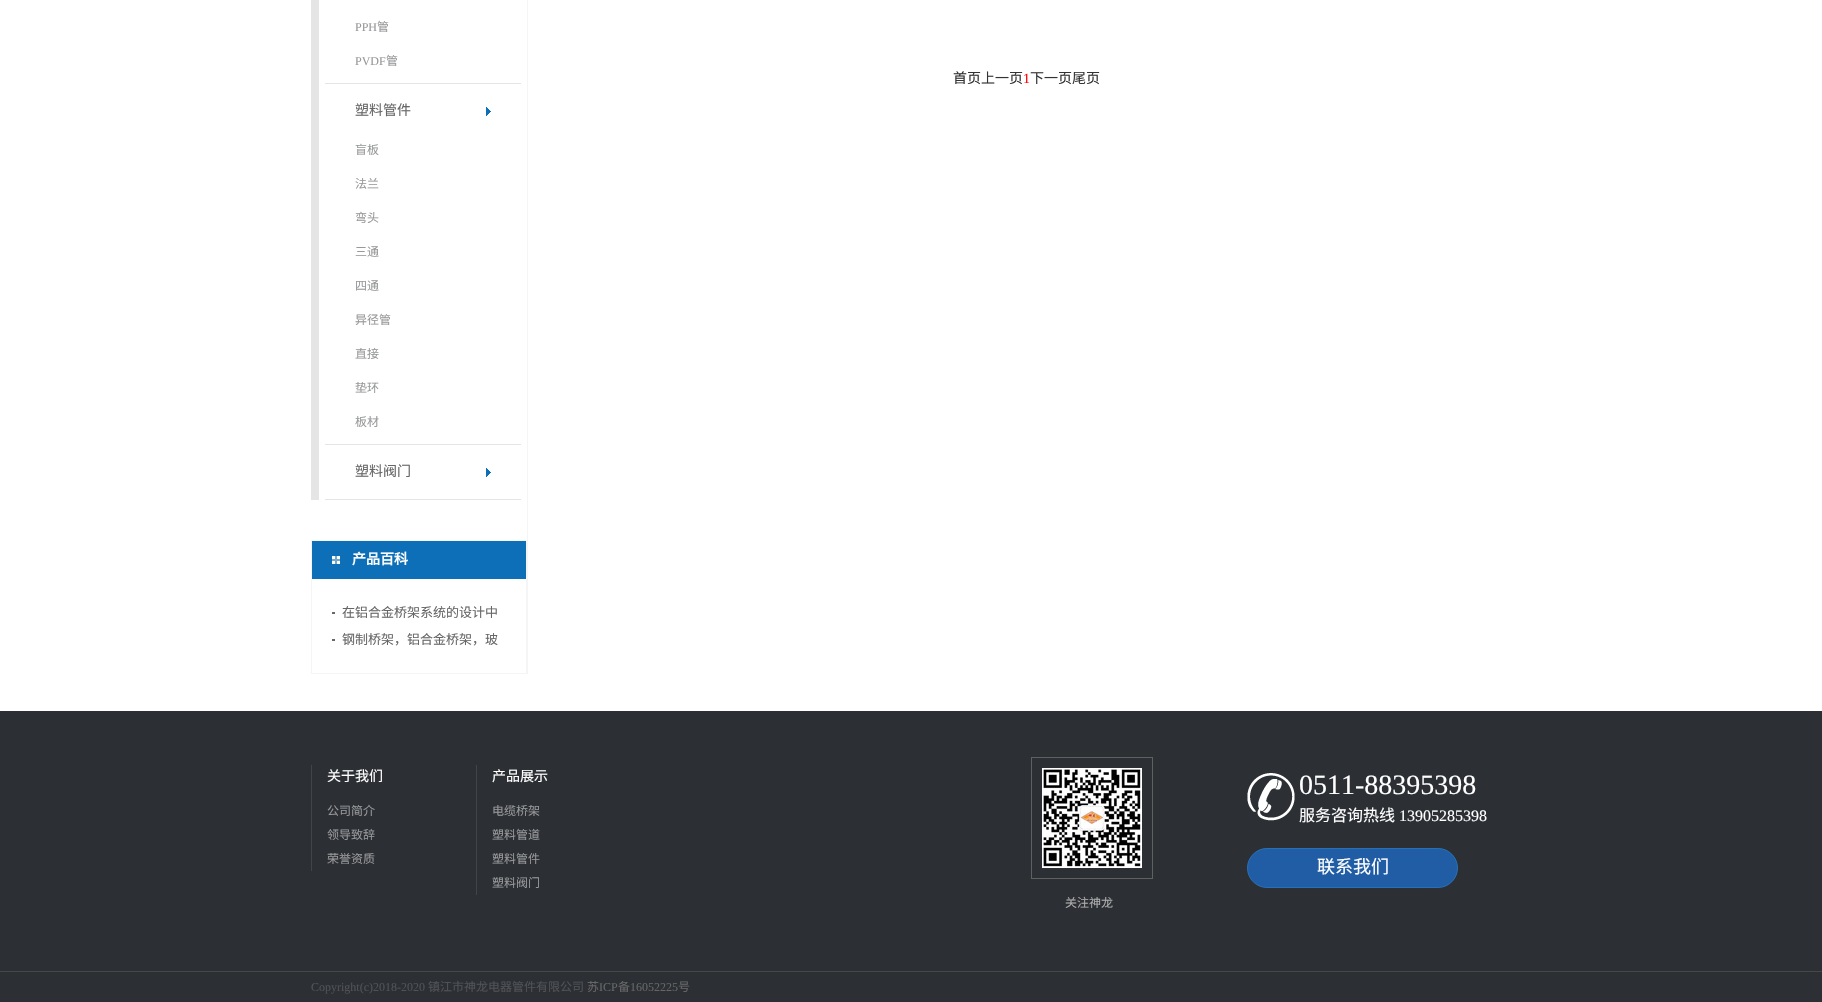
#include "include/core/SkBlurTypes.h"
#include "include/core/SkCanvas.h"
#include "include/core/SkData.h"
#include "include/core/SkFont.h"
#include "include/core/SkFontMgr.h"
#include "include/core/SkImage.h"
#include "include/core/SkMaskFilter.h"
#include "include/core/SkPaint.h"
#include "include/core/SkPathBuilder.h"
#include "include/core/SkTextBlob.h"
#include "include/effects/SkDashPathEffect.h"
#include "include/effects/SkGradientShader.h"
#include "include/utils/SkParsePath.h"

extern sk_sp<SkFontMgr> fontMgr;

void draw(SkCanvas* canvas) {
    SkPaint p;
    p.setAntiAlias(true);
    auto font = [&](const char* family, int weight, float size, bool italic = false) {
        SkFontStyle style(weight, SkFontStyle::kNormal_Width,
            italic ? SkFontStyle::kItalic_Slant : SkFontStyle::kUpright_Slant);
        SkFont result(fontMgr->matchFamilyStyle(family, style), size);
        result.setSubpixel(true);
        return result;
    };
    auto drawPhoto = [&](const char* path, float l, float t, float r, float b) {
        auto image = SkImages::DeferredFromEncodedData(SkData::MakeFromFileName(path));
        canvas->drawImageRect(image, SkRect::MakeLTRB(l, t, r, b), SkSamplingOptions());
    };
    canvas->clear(0xFFFFFFFF);
    {
        const struct { float l, t, r, b; SkColor color; } items[] = {
            {527, 0, 528, 674, 0xFFF5F5F5},
            {311, 0, 319, 500, 0xFFE5E5E5},
            {325, 83, 521, 84, 0xFFE5E5E5},
        };
        for (auto [l, t, r, b, color] : items) {
            p.setColor(color);
            canvas->drawRect(SkRect::MakeLTRB(l, t, r, b), p);
        }
    }
    auto font1 = font("Liberation Serif", 400, 12);
    p.setColor(0xFF97989A);
    canvas->drawString("PPH", 355, 31, font1, p);
    auto font2 = font("Noto Sans CJK SC", 400, 12);
    canvas->drawString("管", 377, 31, font2, p);
    canvas->drawString("PVDF", 355, 65, font1, p);
    canvas->drawString("管", 386, 65, font2, p);
    p.setColor(0xFFE5E5E5);
    canvas->drawRect(SkRect::MakeLTRB(325, 444, 521, 445), p);
    drawPhoto("media/1.png", 486, 107, 491, 116);
    auto font3 = font("Noto Sans CJK SC", 400, 14);
    p.setColor(0xFF666666);
    canvas->drawString("塑料管件", 355, 115, font3, p);
    p.setColor(0xFF97989A);
    {
        const struct { const char* s; float x, y; } items[] = {
            {"盲板", 355, 154},
            {"法兰", 355, 188},
            {"弯头", 355, 222},
            {"三通", 355, 256},
            {"四通", 355, 290},
            {"异径管", 355, 324},
            {"直接", 355, 358},
            {"垫环", 355, 392},
            {"板材", 355, 426},
        };
        for (auto [s, x, y] : items) {
            canvas->drawString(s, x, y, font2, p);
        }
    }
    p.setColor(0xFFE5E5E5);
    canvas->drawRect(SkRect::MakeLTRB(325, 499, 521, 500), p);
    drawPhoto("media/1.png", 486, 468, 491, 477);
    p.setColor(0xFF666666);
    canvas->drawString("塑料阀门", 355, 476, font3, p);
    p.setStyle(SkPaint::kStroke_Style);
    p.setStrokeWidth(1);
    p.setColor(0xFFF5F5F5);
    canvas->drawRect(SkRect::MakeLTRB(311.5f, 540.5f, 526.5f, 673.5f), p);
    p.setStyle(SkPaint::kFill_Style);
    p.setColor(0xFF0D6FB8);
    canvas->drawRect(SkRect::MakeLTRB(312, 541, 526, 579), p);
    drawPhoto("media/2.png", 332, 556, 340, 564);
    auto font4 = font("Noto Sans CJK SC", 700, 14);
    p.setColor(0xFFFFFFFF);
    canvas->drawString("产品百科", 352, 564, font4, p);
    p.setColor(0xFF686868);
    canvas->drawRect(SkRect::MakeLTRB(332, 612, 335, 614), p);
    auto font5 = font("Noto Sans CJK SC", 400, 13);
    p.setColor(0xFF666666);
    canvas->drawString("在铝合金桥架系统的设计中", 342, 617, font5, p);
    p.setColor(0xFF686868);
    canvas->drawRect(SkRect::MakeLTRB(332, 639, 335, 641), p);
    p.setColor(0xFF666666);
    canvas->drawString("钢制桥架，铝合金桥架，玻", 342, 644, font5, p);
    p.setColor(0xFF333333);
    canvas->drawString("首页上一页", 953, 83, font3, p);
    auto font6 = font("Liberation Serif", 400, 14);
    p.setColor(0xFFFF0000);
    canvas->drawString("1", 1023, 83, font6, p);
    p.setColor(0xFF333333);
    canvas->drawString("下一页尾页", 1030, 83, font3, p);
    p.setColor(0xFF2C2F34);
    canvas->drawRect(SkRect::MakeLTRB(0, 711, 1822, 1002), p);
    p.setColor(0xFF424449);
    canvas->drawRect(SkRect::MakeLTRB(311, 765, 312, 871), p);
    p.setColor(0xFFFFFFFF);
    canvas->drawString("关于我们", 327, 781, font3, p);
    p.setColor(0xFF97989A);
    {
        const struct { const char* s; float x, y; } items[] = {
            {"公司简介", 327, 815},
            {"领导致辞", 327, 839},
            {"荣誉资质", 327, 863},
        };
        for (auto [s, x, y] : items) {
            canvas->drawString(s, x, y, font2, p);
        }
    }
    p.setColor(0xFF424449);
    canvas->drawRect(SkRect::MakeLTRB(476, 765, 477, 895), p);
    p.setColor(0xFFFFFFFF);
    canvas->drawString("产品展示", 492, 781, font3, p);
    p.setColor(0xFF97989A);
    {
        const struct { const char* s; float x, y; } items[] = {
            {"电缆桥架", 492, 815},
            {"塑料管道", 492, 839},
            {"塑料管件", 492, 863},
            {"塑料阀门", 492, 887},
        };
        for (auto [s, x, y] : items) {
            canvas->drawString(s, x, y, font2, p);
        }
    }
    drawPhoto("media/3.png", 1247, 773, 1295, 821);
    auto font7 = font("Liberation Serif", 400, 28);
    p.setColor(0xFFFFFFFF);
    canvas->drawString("0511-88395398", 1299, 794, font7, p);
    auto font8 = font("Noto Sans CJK SC", 400, 16);
    canvas->drawString("服务咨询热线", 1299, 821, font8, p);
    auto font9 = font("Liberation Serif", 400, 16);
    canvas->drawString("13905285398", 1399, 821, font9, p);
    p.setColor(0xFF205DA5);
    canvas->drawRoundRect(SkRect::MakeLTRB(1247.5f, 848.5f, 1457.5f, 887.5f), 19.5f, 19.5f, p);
    p.setStyle(SkPaint::kStroke_Style);
    p.setColor(0xFF2670B7);
    canvas->drawRoundRect(SkRect::MakeLTRB(1247.5f, 848.5f, 1457.5f, 887.5f), 19.5f, 19.5f, p);
    auto font10 = font("Noto Sans CJK SC", 400, 18);
    p.setStyle(SkPaint::kFill_Style);
    p.setColor(0xFFFFFFFF);
    canvas->drawString("联系我们", 1317, 873, font10, p);
    p.setStyle(SkPaint::kStroke_Style);
    p.setColor(0xFF606060);
    canvas->drawRect(SkRect::MakeLTRB(1031.5f, 757.5f, 1152.5f, 878.5f), p);
    drawPhoto("media/4.png", 1042, 768, 1142, 868);
    p.setStyle(SkPaint::kFill_Style);
    p.setColor(0xFFAEAEAE);
    canvas->drawString("关注神龙", 1065, 907, font2, p);
    p.setColor(0xFF484848);
    canvas->drawRect(SkRect::MakeLTRB(0, 971, 1822, 972), p);
    p.setColor(0xFF505256);
    canvas->drawString("Copyright(c)2018-2020", 311, 991, font1, p);
    canvas->drawString("镇江市神龙电器管件有限公司", 428, 991, font2, p);
    p.setColor(0xFF666666);
    canvas->drawString("苏", 587, 991, font2, p);
    canvas->drawString("ICP", 599, 991, font1, p);
    canvas->drawString("备", 618, 991, font2, p);
    canvas->drawString("16052225", 630, 991, font1, p);
    canvas->drawString("号", 678, 991, font2, p);
}
